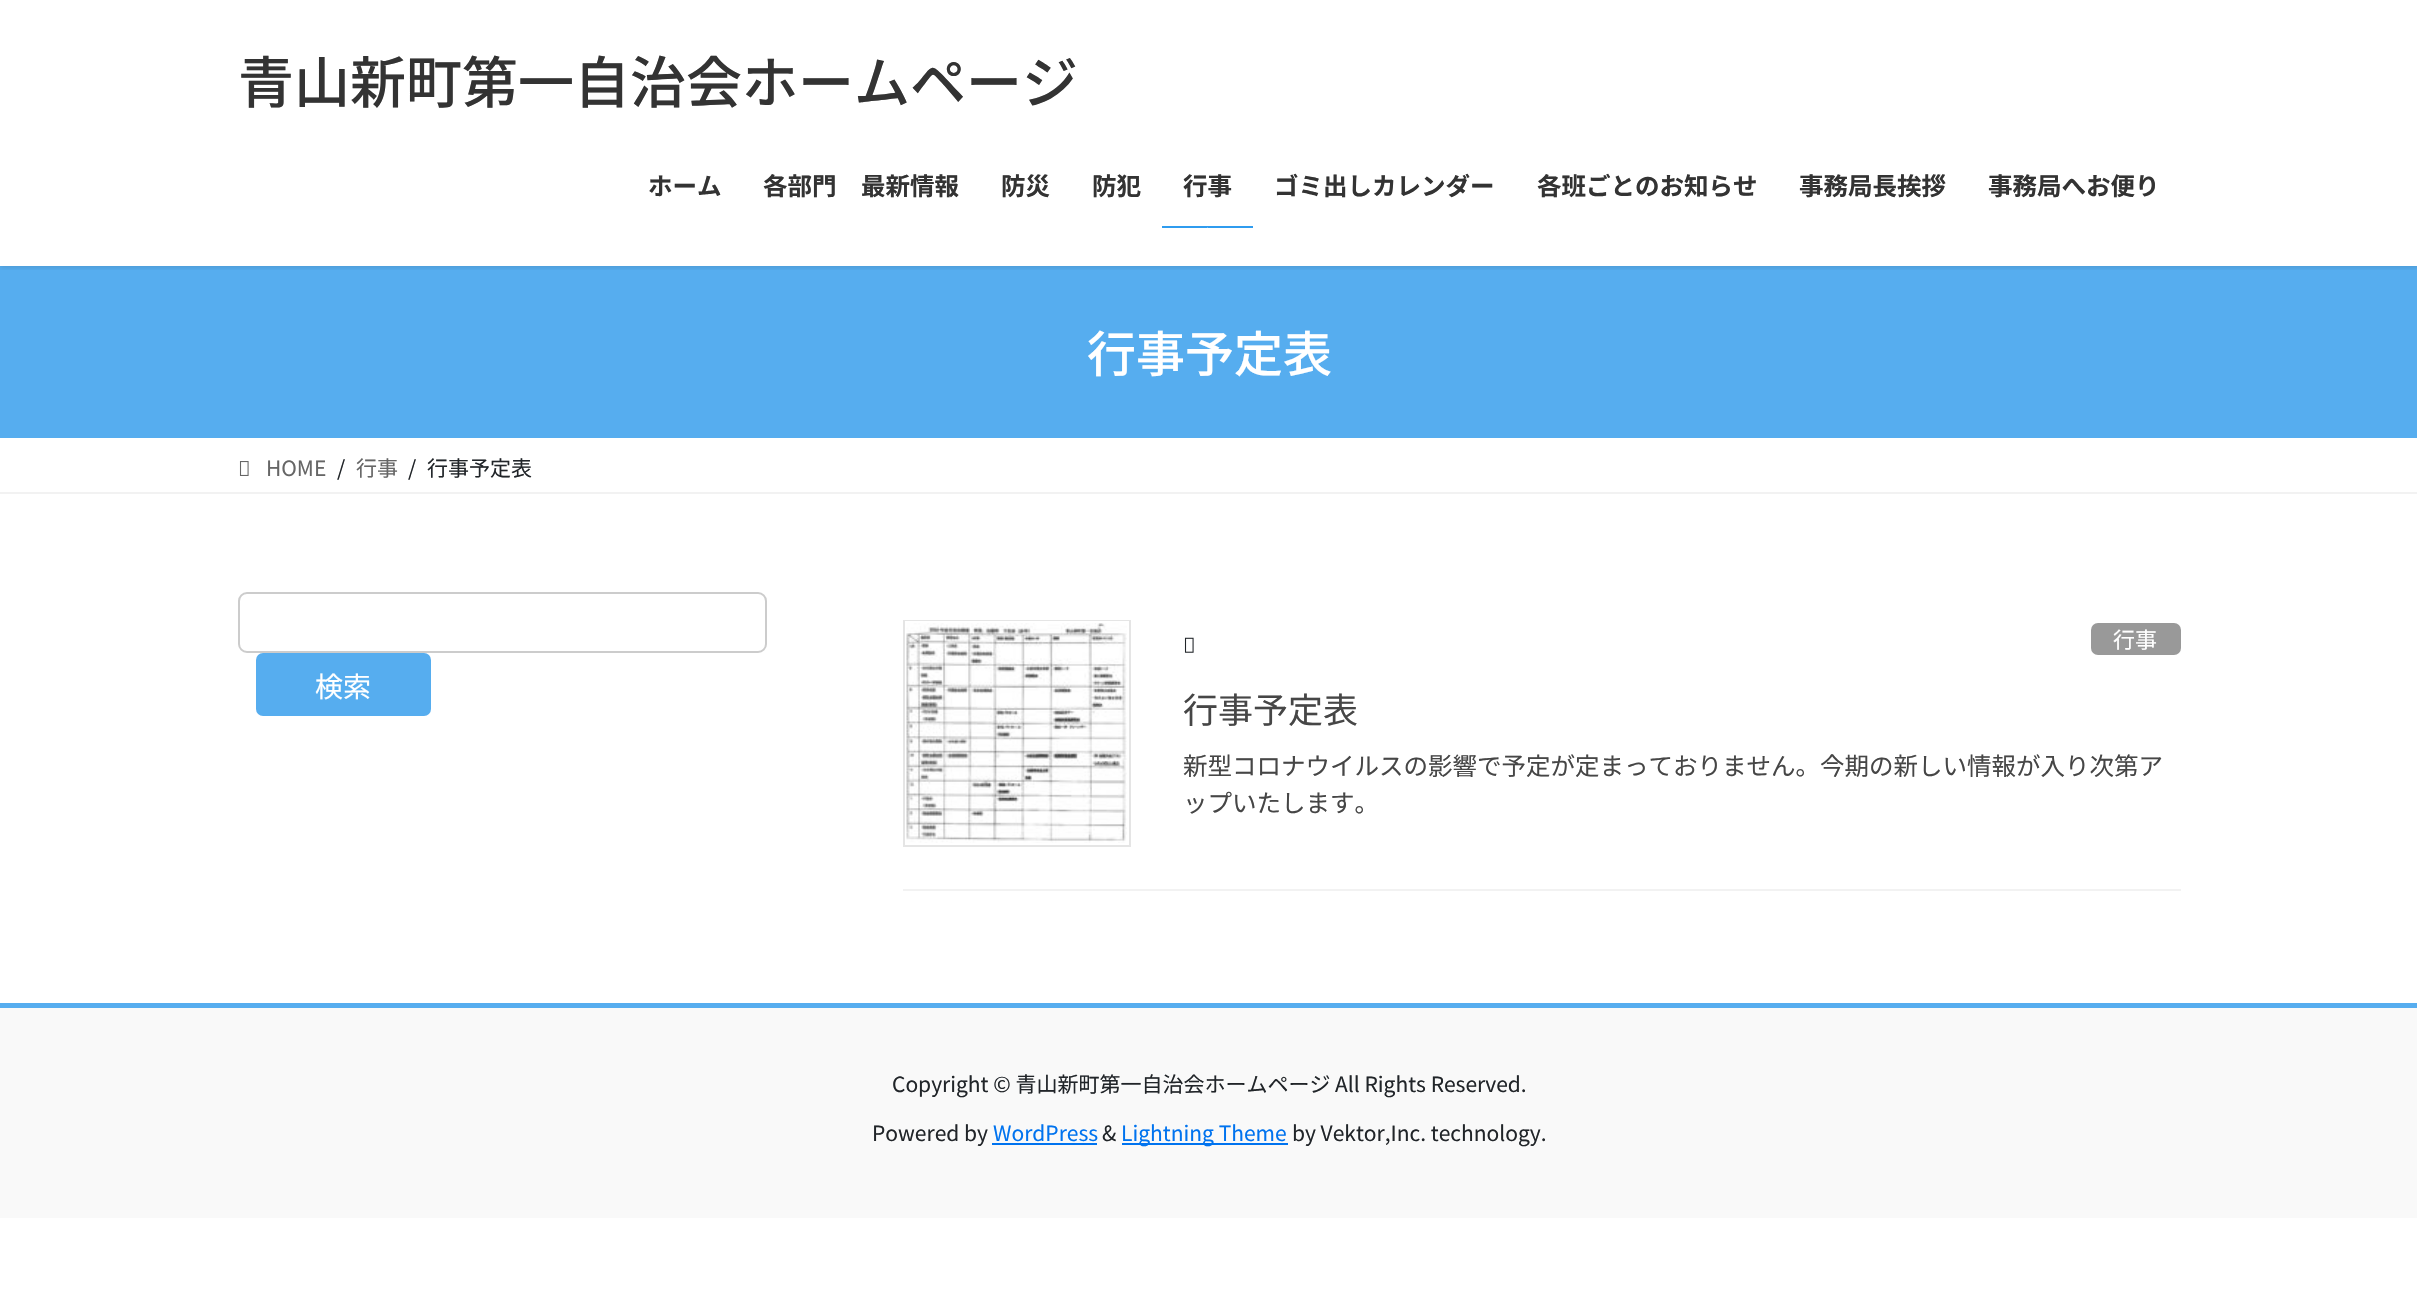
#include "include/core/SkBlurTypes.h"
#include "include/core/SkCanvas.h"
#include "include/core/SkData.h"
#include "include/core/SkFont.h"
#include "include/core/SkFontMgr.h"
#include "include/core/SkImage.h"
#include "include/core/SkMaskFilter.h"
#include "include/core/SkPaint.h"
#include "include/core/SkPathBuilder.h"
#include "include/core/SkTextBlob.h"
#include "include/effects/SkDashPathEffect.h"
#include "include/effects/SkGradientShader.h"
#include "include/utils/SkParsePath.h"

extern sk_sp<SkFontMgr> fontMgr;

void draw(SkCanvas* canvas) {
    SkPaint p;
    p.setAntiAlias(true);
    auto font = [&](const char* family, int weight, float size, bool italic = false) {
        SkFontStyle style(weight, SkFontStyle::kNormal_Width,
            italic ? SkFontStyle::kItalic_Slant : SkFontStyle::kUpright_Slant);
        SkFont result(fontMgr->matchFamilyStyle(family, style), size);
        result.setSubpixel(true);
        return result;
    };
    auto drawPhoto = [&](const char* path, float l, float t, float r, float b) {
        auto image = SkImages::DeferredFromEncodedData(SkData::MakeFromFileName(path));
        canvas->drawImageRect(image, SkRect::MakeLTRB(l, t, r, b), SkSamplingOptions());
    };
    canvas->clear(0xFFFFFFFF);
    p.setColor(0xFF56ADEF);
    canvas->drawRect(SkRect::MakeLTRB(0, 266, 2417, 438), p);
    canvas->save();
    canvas->clipRect(SkRect::MakeLTRB(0, 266, 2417, 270));
    p.setColor(0x1A000000);
    p.setMaskFilter(SkMaskFilter::MakeBlur(kNormal_SkBlurStyle, 2.5f));
    canvas->drawRect(SkRect::MakeLTRB(0, 2, 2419, 268), p);
    p.setMaskFilter(nullptr);
    canvas->restore();
    auto font1 = font("Noto Sans JP", 500, 56);
    p.setColor(0xFF333333);
    canvas->drawString("青山新町第一自治会ホームページ", 238, 103, font1, p);
    auto font2 = font("Noto Sans JP", 700, 24.5f);
    {
        const struct { const char* s; float x, y; } items[] = {
            {"ホーム", 648, 195},
            {"各部門　最新情報", 763, 195},
            {"防災", 1001, 195},
            {"防犯", 1092, 195},
            {"行事", 1183, 195},
        };
        for (auto [s, x, y] : items) {
            canvas->drawString(s, x, y, font2, p);
        }
    }
    p.setColor(0xFF2F9CEF);
    canvas->drawRect(SkRect::MakeLTRB(1162, 226, 1253, 228), p);
    p.setColor(0xFFFFFFFF);
    canvas->drawPath(SkPathBuilder().moveTo(1225, 245).lineTo(1190, 245).lineTo(1207.5f, 227.5f).close().detach(), p);
    p.setColor(0xFF333333);
    {
        const struct { const char* s; float x, y; } items[] = {
            {"ゴミ出しカレンダー", 1274, 195},
            {"各班ごとのお知らせ", 1537, 195},
            {"事務局長挨拶", 1799, 195},
            {"事務局へお便り", 1988, 195},
        };
        for (auto [s, x, y] : items) {
            canvas->drawString(s, x, y, font2, p);
        }
    }
    auto font3 = font("Noto Sans JP", 500, 49);
    p.setColor(0xFFFFFFFF);
    canvas->drawString("行事予定表", 1087, 372, font3, p);
    p.setColor(0xFFF2F2F2);
    canvas->drawRect(SkRect::MakeLTRB(0, 492, 2417, 494), p);
    drawPhoto("media/1.png", 239, 461, 249, 476);
    auto font4 = font("Noto Sans JP", 400, 21);
    p.setColor(0xFF666666);
    canvas->drawString("HOME", 266, 476, font4, p);
    p.setColor(0xFF212529);
    canvas->drawString("/", 337, 476, font4, p);
    p.setColor(0xFF666666);
    canvas->drawString("行事", 356, 476, font4, p);
    p.setColor(0xFF212529);
    canvas->drawString("/", 408, 476, font4, p);
    canvas->drawString("行事予定表", 427, 476, font4, p);
    p.setStyle(SkPaint::kStroke_Style);
    p.setStrokeWidth(2);
    p.setColor(0xFFCCCCCC);
    canvas->drawRoundRect(SkRect::MakeLTRB(239, 593, 766, 652), 8, 8, p);
    p.setStyle(SkPaint::kFill_Style);
    p.setColor(0xFF56ADEF);
    canvas->drawRoundRect(SkRect::MakeLTRB(256, 653, 431, 716), 7, 7, p);
    auto font5 = font("Noto Sans JP", 400, 28);
    p.setColor(0xFFFFFFFF);
    canvas->drawString("検索", 315, 697, font5, p);
    p.setColor(0xFFF2F2F2);
    canvas->drawRect(SkRect::MakeLTRB(903, 889, 2181, 891), p);
    p.setStyle(SkPaint::kStroke_Style);
    p.setColor(0xFFE5E5E5);
    canvas->drawRect(SkRect::MakeLTRB(904, 621, 1130, 846), p);
    p.setColor(0xFFFFFFFF);
    canvas->drawRect(SkRect::MakeLTRB(906, 622, 1128, 844), p);
    drawPhoto("media/2.png", 906, 623, 1127, 843);
    drawPhoto("media/3.png", 1184, 637, 1194, 653);
    p.setStyle(SkPaint::kFill_Style);
    p.setColor(0xFF999999);
    canvas->drawRoundRect(SkRect::MakeLTRB(2091, 623, 2181, 655), 7, 7, p);
    auto font6 = font("Noto Sans JP", 400, 22);
    p.setColor(0xFFFFFFFF);
    canvas->drawString("行事", 2113, 648, font6, p);
    auto font7 = font("Noto Sans JP", 400, 35);
    p.setColor(0xFF464646);
    canvas->drawString("行事予定表", 1183, 723, font7, p);
    auto font8 = font("Noto Sans JP", 400, 24.5f);
    canvas->drawString("新型コロナウイルスの影響で予定が定まっておりません。今期の新しい情報が入り次第ア", 1183, 775, font8, p);
    canvas->drawString("ップいたします。", 1183, 812, font8, p);
    p.setColor(0xFFF9F9F9);
    canvas->drawRect(SkRect::MakeLTRB(0, 1008, 2417, 1218), p);
    p.setColor(0xFF56ADEF);
    canvas->drawRect(SkRect::MakeLTRB(0, 1003, 2417, 1008), p);
    p.setColor(0xFF212529);
    canvas->drawString("Copyright © 青山新町第一自治会ホームページ All Rights Reserved.", 892, 1092, font4, p);
    canvas->drawString("Powered by", 872, 1141, font4, p);
    p.setColor(0xFF0073EF);
    canvas->drawString("WordPress", 993, 1141, font4, p);
    canvas->drawRect(SkRect::MakeLTRB(992, 1143, 1097, 1145), p);
    p.setColor(0xFF212529);
    canvas->drawString("&", 1102, 1141, font4, p);
    p.setColor(0xFF0073EF);
    canvas->drawRect(SkRect::MakeLTRB(1122, 1143, 1288, 1145), p);
    canvas->drawString("Lightning Theme", 1121, 1141, font4, p);
    p.setColor(0xFF212529);
    canvas->drawString("by Vektor,Inc. technology.", 1292, 1141, font4, p);
}
